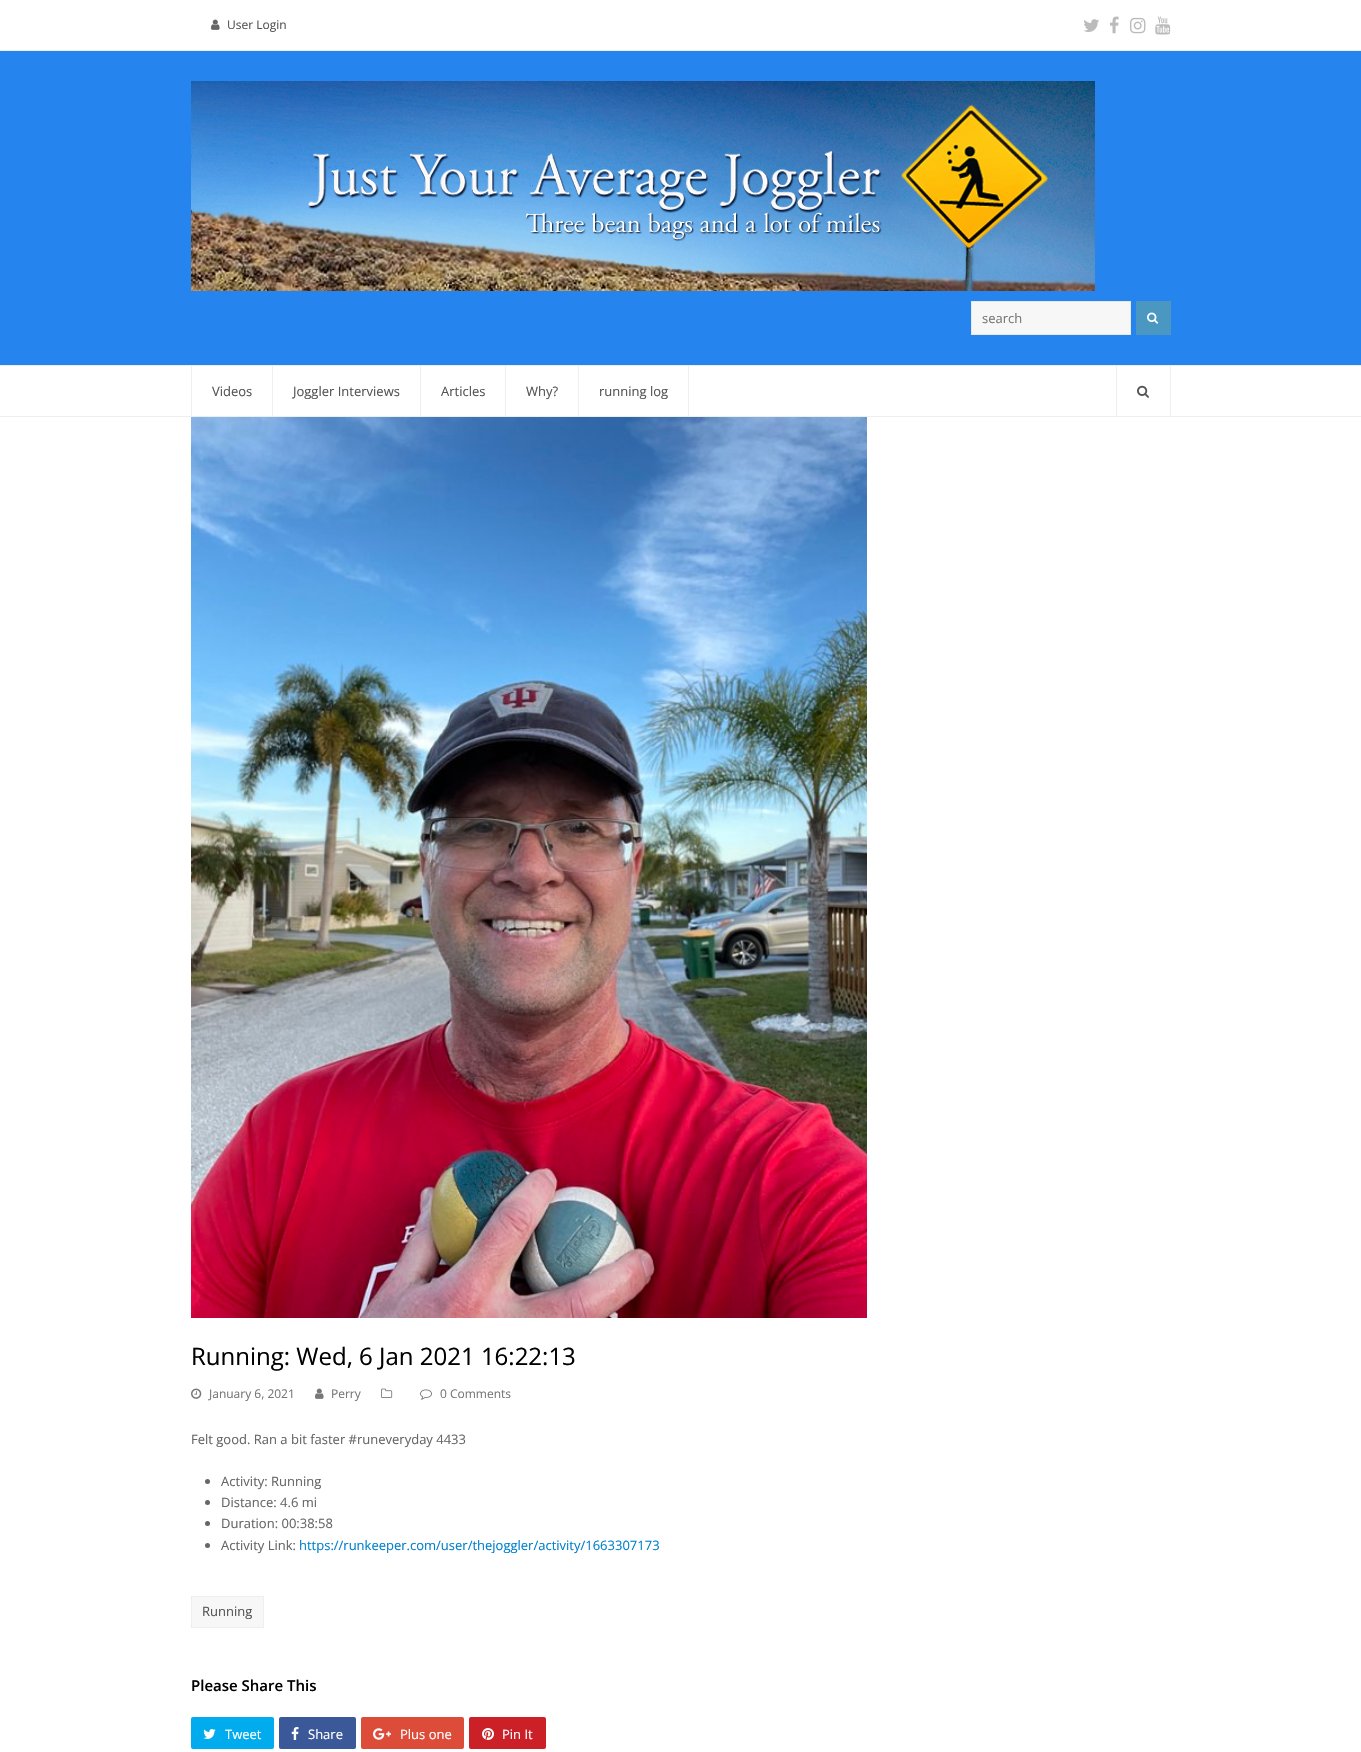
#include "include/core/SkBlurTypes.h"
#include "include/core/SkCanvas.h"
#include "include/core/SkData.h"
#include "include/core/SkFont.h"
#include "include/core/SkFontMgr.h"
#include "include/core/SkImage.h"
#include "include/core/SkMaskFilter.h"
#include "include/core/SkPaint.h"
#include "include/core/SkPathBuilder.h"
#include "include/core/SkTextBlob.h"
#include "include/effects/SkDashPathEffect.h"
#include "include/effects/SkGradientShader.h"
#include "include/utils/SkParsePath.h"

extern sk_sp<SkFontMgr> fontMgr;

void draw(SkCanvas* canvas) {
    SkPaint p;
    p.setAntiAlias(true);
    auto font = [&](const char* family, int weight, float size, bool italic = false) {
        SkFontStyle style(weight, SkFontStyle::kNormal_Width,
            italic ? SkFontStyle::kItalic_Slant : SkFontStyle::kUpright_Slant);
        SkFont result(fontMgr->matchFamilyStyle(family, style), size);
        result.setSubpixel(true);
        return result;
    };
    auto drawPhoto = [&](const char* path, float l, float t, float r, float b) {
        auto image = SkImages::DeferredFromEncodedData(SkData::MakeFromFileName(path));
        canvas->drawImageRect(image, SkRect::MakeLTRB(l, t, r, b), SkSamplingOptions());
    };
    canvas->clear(0xFFFFFFFF);
    p.setColor(0xFFEEEEEE);
    canvas->drawRect(SkRect::MakeLTRB(0, 50, 1361, 51), p);
    drawPhoto("media/1.png", 211, 19, 220, 30);
    auto font1 = font("Open Sans", 400, 12);
    p.setColor(0xFF555555);
    canvas->drawString("User Login", 227, 29, font1, p);
    drawPhoto("media/2.png", 1083, 19, 1099, 32);
    drawPhoto("media/3.png", 1110, 16, 1119, 34);
    drawPhoto("media/4.png", 1130, 17, 1146, 34);
    drawPhoto("media/5.png", 1155, 16, 1171, 35);
    p.setColor(0xFF2684EF);
    canvas->drawRect(SkRect::MakeLTRB(0, 51, 1361, 365), p);
    drawPhoto("media/6.png", 191, 81, 1095, 291);
    p.setColor(0xFFF7F7F7);
    canvas->drawRect(SkRect::MakeLTRB(971.5f, 301.5f, 1130.5f, 334.5f), p);
    p.setStyle(SkPaint::kStroke_Style);
    p.setStrokeWidth(1);
    p.setColor(0xFFE8E8E8);
    canvas->drawRect(SkRect::MakeLTRB(971.5f, 301.5f, 1130.5f, 334.5f), p);
    auto font2 = font("Open Sans", 400, 13);
    p.setStyle(SkPaint::kFill_Style);
    p.setColor(0xFF777777);
    canvas->drawString("search", 982, 323, font2, p);
    p.setColor(0xFF4A97C2);
    canvas->drawRect(SkRect::MakeLTRB(1136, 301, 1171, 335), p);
    drawPhoto("media/7.png", 1147, 312, 1159, 324);
    {
        const struct { float l, t, r, b; SkColor color; } items[] = {
            {0, 365, 1361, 366, 0xFFEEEEEE},
            {0, 416, 1361, 417, 0xFFEEEEEE},
            {1170, 366, 1171, 416, 0xFFEEEEEE},
            {191, 366, 192, 416, 0xFFEEEEEE},
            {272, 366, 273, 416, 0xFFEEEEEE},
        };
        for (auto [l, t, r, b, color] : items) {
            p.setColor(color);
            canvas->drawRect(SkRect::MakeLTRB(l, t, r, b), p);
        }
    }
    p.setColor(0xFF555555);
    canvas->drawString("Videos", 212, 396, font2, p);
    p.setColor(0xFFEEEEEE);
    canvas->drawRect(SkRect::MakeLTRB(420, 366, 421, 416), p);
    p.setColor(0xFF555555);
    canvas->drawString("Joggler Interviews", 293, 396, font2, p);
    p.setColor(0xFFEEEEEE);
    canvas->drawRect(SkRect::MakeLTRB(505, 366, 506, 416), p);
    p.setColor(0xFF555555);
    canvas->drawString("Articles", 441, 396, font2, p);
    p.setColor(0xFFEEEEEE);
    canvas->drawRect(SkRect::MakeLTRB(578, 366, 579, 416), p);
    p.setColor(0xFF555555);
    canvas->drawString("Why?", 526, 396, font2, p);
    p.setColor(0xFFEEEEEE);
    canvas->drawRect(SkRect::MakeLTRB(688, 366, 689, 416), p);
    p.setColor(0xFF555555);
    canvas->drawString("running log", 599, 396, font2, p);
    p.setColor(0xFFEEEEEE);
    canvas->drawRect(SkRect::MakeLTRB(1116, 366, 1117, 416), p);
    drawPhoto("media/8.png", 1137, 385, 1149, 398);
    drawPhoto("media/9.png", 191, 417, 867, 1318);
    auto font3 = font("Open Sans", 400, 24);
    p.setColor(0xFF000000);
    canvas->drawString("Running: Wed, 6 Jan 2021 16:22:13", 191, 1365, font3, p);
    drawPhoto("media/10.png", 191, 1388, 202, 1399);
    p.setColor(0xFF777777);
    canvas->drawString("January 6, 2021", 209, 1398, font1, p);
    drawPhoto("media/11.png", 315, 1388, 324, 1399);
    canvas->drawString("Perry", 331, 1398, font1, p);
    drawPhoto("media/12.png", 381, 1388, 393, 1398);
    drawPhoto("media/13.png", 420, 1389, 432, 1400);
    canvas->drawString("0 Comments", 440, 1398, font1, p);
    p.setColor(0xFF666666);
    canvas->drawString("Felt good. Ran a bit faster #runeveryday 4433", 191, 1444, font2, p);
    canvas->drawCircle(207.5f, 1481.5f, 2.5f, p);
    canvas->drawString("Activity: Running", 221, 1486, font2, p);
    canvas->drawCircle(207.5f, 1502.5f, 2.5f, p);
    canvas->drawString("Distance: 4.6 mi", 221, 1507, font2, p);
    canvas->drawCircle(207.5f, 1523.5f, 2.5f, p);
    canvas->drawString("Duration: 00:38:58", 221, 1528, font2, p);
    canvas->drawCircle(207.5f, 1545.5f, 2.5f, p);
    canvas->drawString("Activity Link:", 221, 1550, font2, p);
    p.setColor(0xFF0081CC);
    canvas->drawString("https://runkeeper.com/user/thejoggler/activity/1663307173", 299, 1550, font2, p);
    p.setColor(0xFFF7F7F7);
    canvas->drawRect(SkRect::MakeLTRB(191.5f, 1596.5f, 263.5f, 1627.5f), p);
    p.setStyle(SkPaint::kStroke_Style);
    p.setColor(0xFFEEEEEE);
    canvas->drawRect(SkRect::MakeLTRB(191.5f, 1596.5f, 263.5f, 1627.5f), p);
    p.setStyle(SkPaint::kFill_Style);
    p.setColor(0xFF555555);
    canvas->drawString("Running", 202, 1616, font2, p);
    auto font4 = font("Open Sans", 600, 15);
    p.setColor(0xFF000000);
    canvas->drawString("Please Share This", 191, 1691, font4, p);
    p.setColor(0xFF00ACED);
    canvas->drawRoundRect(SkRect::MakeLTRB(191, 1717, 274, 1749), 2, 2, p);
    drawPhoto("media/14.png", 203, 1729, 216, 1739);
    p.setColor(0xFFFFFFFF);
    canvas->drawString("Tweet", 225, 1739, font2, p);
    p.setColor(0xFF3B5998);
    canvas->drawRoundRect(SkRect::MakeLTRB(279, 1717, 356, 1749), 2, 2, p);
    drawPhoto("media/15.png", 291, 1727, 299, 1740);
    p.setColor(0xFFFFFFFF);
    canvas->drawString("Share", 308, 1739, font2, p);
    p.setColor(0xFFDD4B39);
    canvas->drawRoundRect(SkRect::MakeLTRB(361, 1717, 464, 1749), 2, 2, p);
    drawPhoto("media/16.png", 373, 1728, 391, 1740);
    p.setColor(0xFFFFFFFF);
    canvas->drawString("Plus one", 400, 1739, font2, p);
    p.setColor(0xFFCB2027);
    canvas->drawRoundRect(SkRect::MakeLTRB(469, 1717, 546, 1749), 2, 2, p);
    drawPhoto("media/17.png", 482, 1728, 494, 1740);
    p.setColor(0xFFFFFFFF);
    canvas->drawString("Pin It", 502, 1739, font2, p);
}
